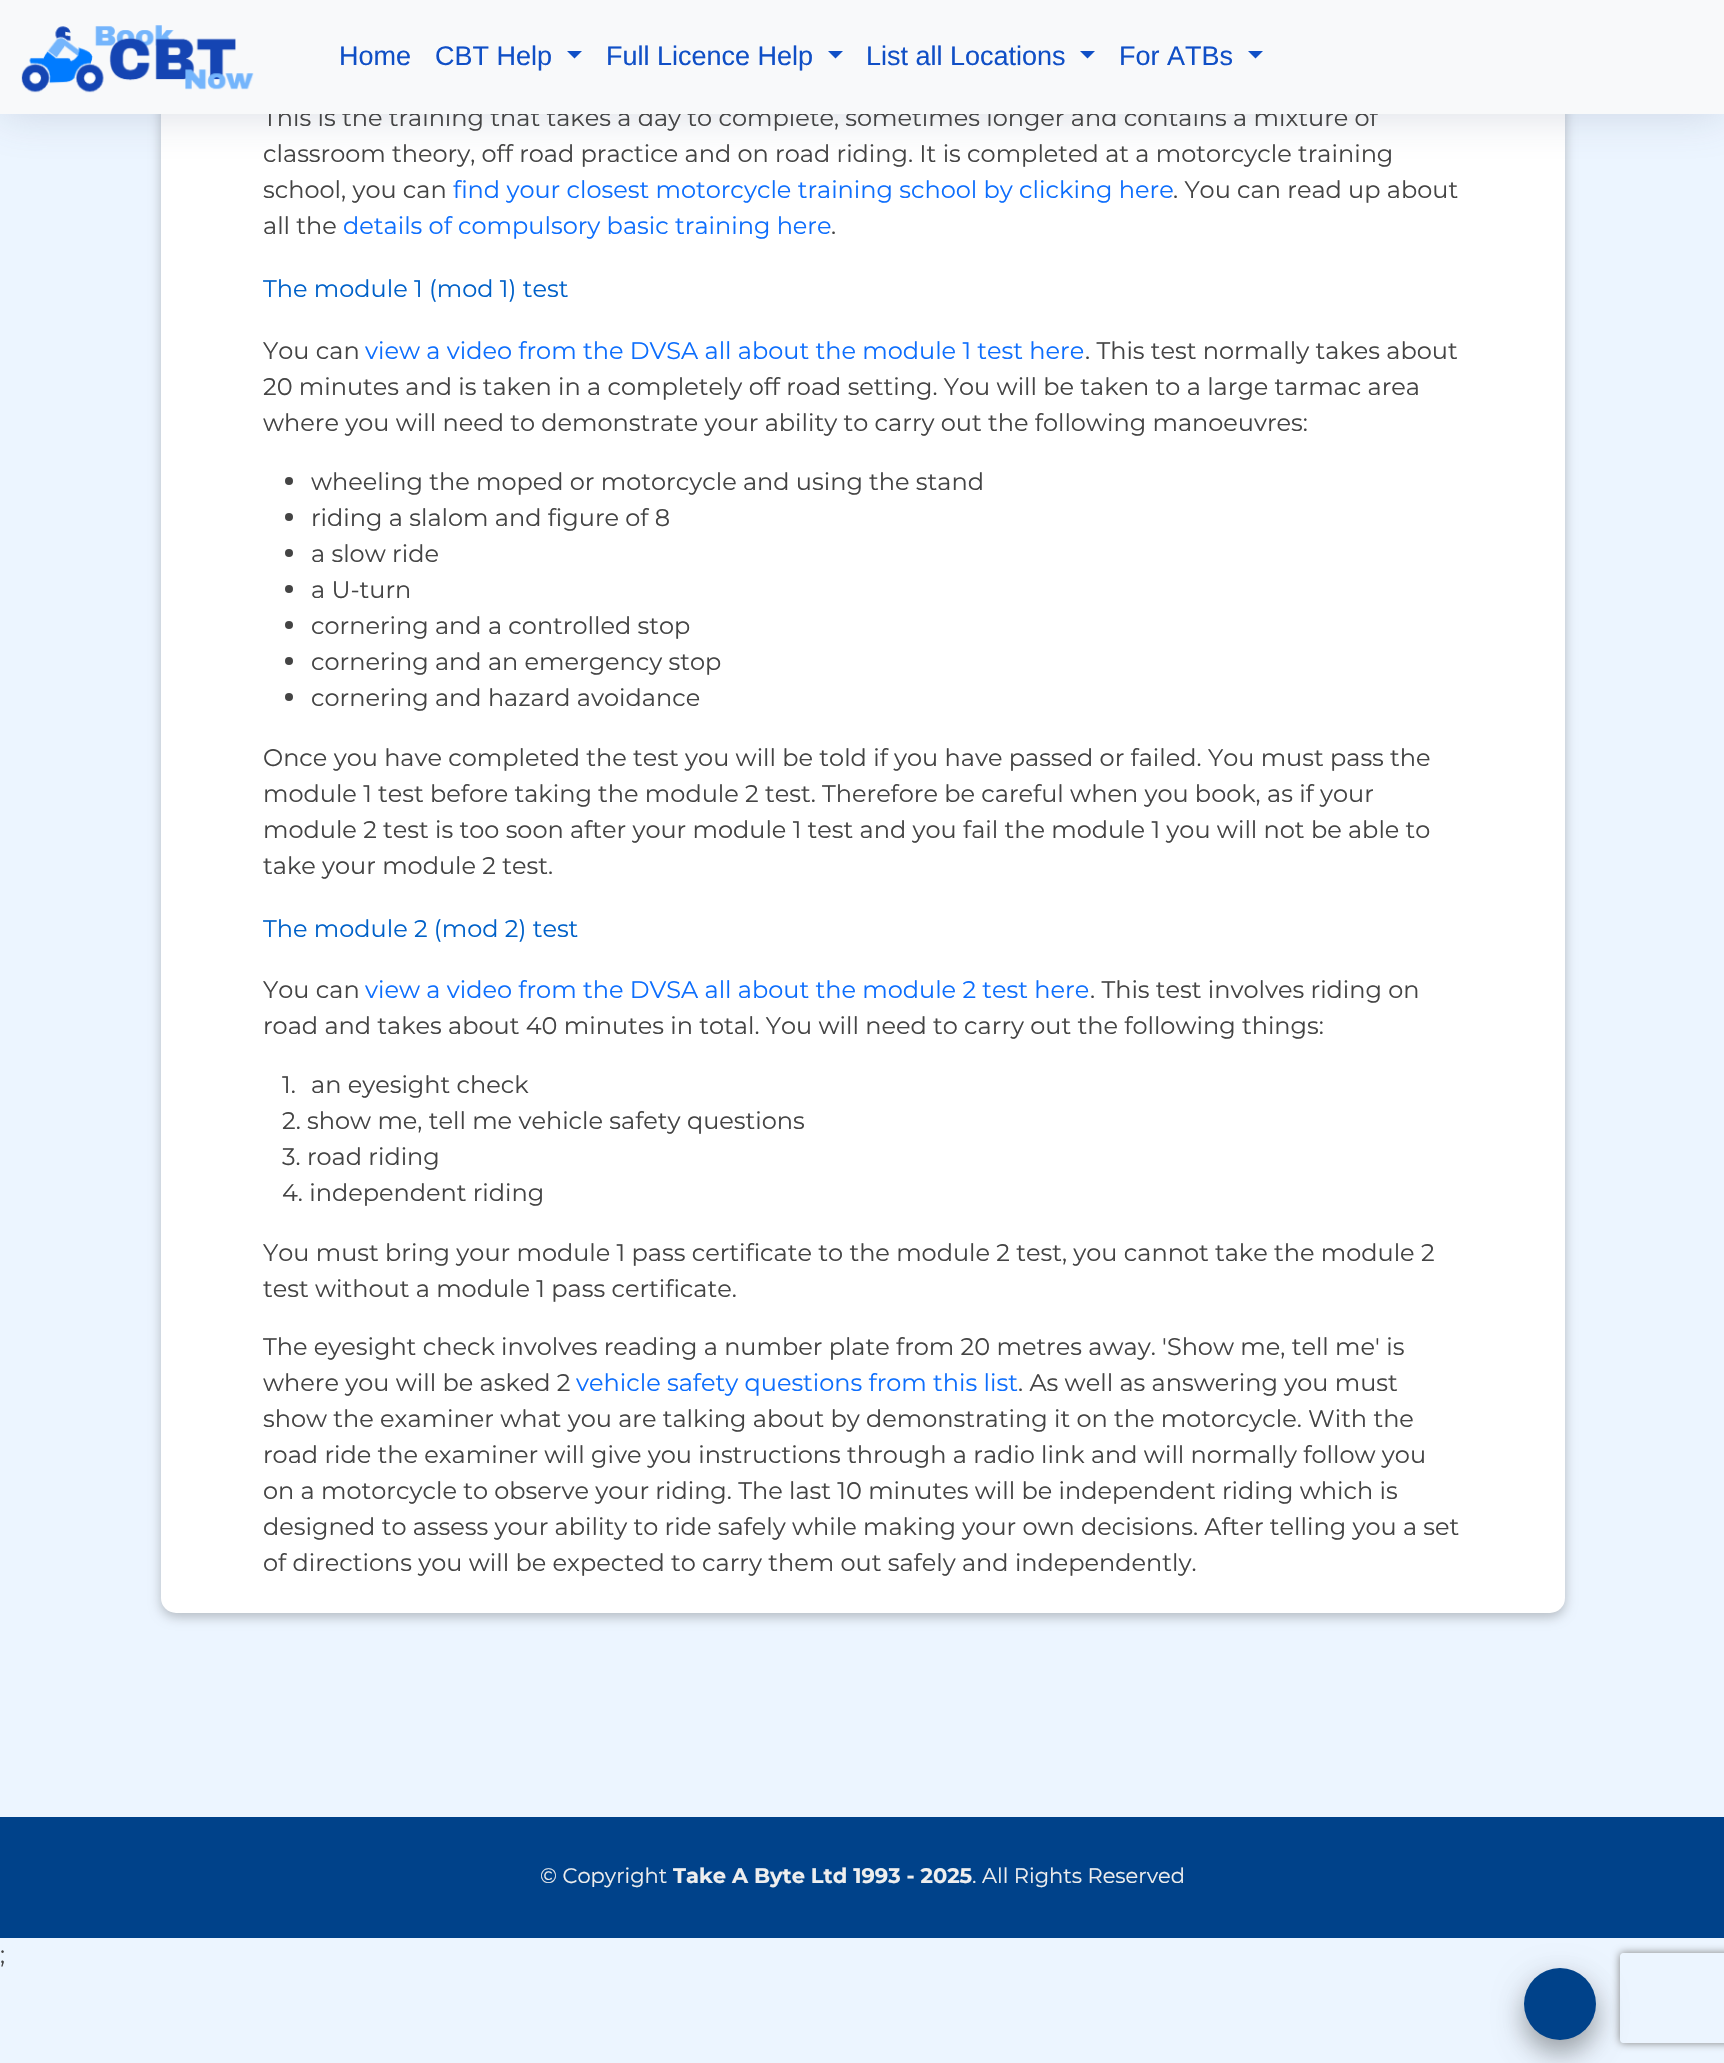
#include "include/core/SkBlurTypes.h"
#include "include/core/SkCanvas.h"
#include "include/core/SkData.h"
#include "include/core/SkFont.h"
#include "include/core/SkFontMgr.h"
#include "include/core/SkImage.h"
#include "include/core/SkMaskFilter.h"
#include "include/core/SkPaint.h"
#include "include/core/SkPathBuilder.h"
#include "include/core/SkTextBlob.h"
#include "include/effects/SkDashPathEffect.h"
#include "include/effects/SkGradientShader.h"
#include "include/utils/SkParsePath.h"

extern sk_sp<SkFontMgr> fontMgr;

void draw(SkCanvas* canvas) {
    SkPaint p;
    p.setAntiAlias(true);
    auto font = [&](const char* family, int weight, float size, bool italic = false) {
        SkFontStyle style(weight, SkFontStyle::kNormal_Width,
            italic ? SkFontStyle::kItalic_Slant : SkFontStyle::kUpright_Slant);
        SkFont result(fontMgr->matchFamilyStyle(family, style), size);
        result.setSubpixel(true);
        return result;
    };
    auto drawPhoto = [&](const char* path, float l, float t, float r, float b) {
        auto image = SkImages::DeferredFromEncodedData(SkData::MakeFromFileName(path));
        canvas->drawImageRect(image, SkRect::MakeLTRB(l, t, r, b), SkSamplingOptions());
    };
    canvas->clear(0xFFECF5FF);
    p.setColor(0x3D000000);
    p.setMaskFilter(SkMaskFilter::MakeBlur(kNormal_SkBlurStyle, 6));
    canvas->drawRoundRect(SkRect::MakeLTRB(161, -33, 1565, 1617), 15, 15, p);
    p.setMaskFilter(nullptr);
    p.setColor(0xFFFFFFFF);
    canvas->drawRoundRect(SkRect::MakeLTRB(161, -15, 1565, 1613), 15, 15, p);
    p.setColor(0x4D7F89A1);
    p.setMaskFilter(SkMaskFilter::MakeBlur(kNormal_SkBlurStyle, 22.5f));
    canvas->drawRect(SkRect::MakeLTRB(0, 0, 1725, 114), p);
    p.setMaskFilter(nullptr);
    auto font1 = font("Montserrat", 400, 24);
    p.setColor(0xFF444444);
    canvas->drawString("This is the training that takes a day to complete, sometimes longer and contains a mixture of", 263, 126, font1, p);
    p.setColor(0xFFF8F9FA);
    canvas->drawRect(SkRect::MakeLTRB(0, 0, 1724, 114), p);
    drawPhoto("media/1.png", 21, 25, 254, 93);
    auto font2 = font("Liberation Sans", 400, 27);
    p.setColor(0xFF104FC6);
    canvas->drawString("Home", 339, 65, font2, p);
    canvas->drawString("CBT Help", 435, 65, font2, p);
    canvas->drawPath(SkPathBuilder().moveTo(567, 51).lineTo(582, 51).lineTo(574.5f, 58.5f).close().detach(), p);
    canvas->drawString("Full Licence Help", 606, 65, font2, p);
    canvas->drawPath(SkPathBuilder().moveTo(828, 51).lineTo(843, 51).lineTo(835.5f, 58.5f).close().detach(), p);
    canvas->drawString("List all Locations", 866, 65, font2, p);
    canvas->drawPath(SkPathBuilder().moveTo(1080, 51).lineTo(1095, 51).lineTo(1087.5f, 58.5f).close().detach(), p);
    canvas->drawString("For ATBs", 1119, 65, font2, p);
    canvas->drawPath(SkPathBuilder().moveTo(1248, 51).lineTo(1263, 51).lineTo(1255.5f, 58.5f).close().detach(), p);
    p.setColor(0xFF444444);
    canvas->drawString("classroom theory, off road practice and on road riding. It is completed at a motorcycle training", 263, 162, font1, p);
    canvas->drawString("school, you can", 263, 198, font1, p);
    p.setColor(0xFF0D6EFD);
    canvas->drawString("find your closest motorcycle training school by clicking here", 453, 198, font1, p);
    p.setColor(0xFF444444);
    canvas->drawString(". You can read up about", 1173, 198, font1, p);
    canvas->drawString("all the", 263, 234, font1, p);
    p.setColor(0xFF0D6EFD);
    canvas->drawString("details of compulsory basic training here", 343, 234, font1, p);
    p.setColor(0xFF444444);
    canvas->drawString(".", 831, 234, font1, p);
    p.setColor(0xFF0061C9);
    canvas->drawString("The module 1 (mod 1) test", 263, 297, font1, p);
    p.setColor(0xFF444444);
    canvas->drawString("You can", 263, 359, font1, p);
    p.setColor(0xFF0D6EFD);
    canvas->drawString("view a video from the DVSA all about the module 1 test here", 365, 359, font1, p);
    p.setColor(0xFF444444);
    {
        const struct { const char* s; float x, y; } items[] = {
            {". This test normally takes about", 1085, 359},
            {"20 minutes and is taken in a completely off road setting. You will be taken to a large tarmac area", 263, 395},
            {"where you will need to demonstrate your ability to carry out the following manoeuvres:", 263, 431},
        };
        for (auto [s, x, y] : items) {
            canvas->drawString(s, x, y, font1, p);
        }
    }
    canvas->drawCircle(289, 481, 4, p);
    canvas->drawString("wheeling the moped or motorcycle and using the stand", 311, 490, font1, p);
    canvas->drawCircle(289, 517, 4, p);
    canvas->drawString("riding a slalom and figure of 8", 311, 526, font1, p);
    canvas->drawCircle(289, 553, 4, p);
    canvas->drawString("a slow ride", 311, 562, font1, p);
    canvas->drawCircle(289, 589, 4, p);
    canvas->drawString("a U-turn", 311, 598, font1, p);
    canvas->drawCircle(289, 625, 4, p);
    canvas->drawString("cornering and a controlled stop", 311, 634, font1, p);
    canvas->drawCircle(289, 661, 4, p);
    canvas->drawString("cornering and an emergency stop", 311, 670, font1, p);
    canvas->drawCircle(289, 697, 4, p);
    {
        const struct { const char* s; float x, y; } items[] = {
            {"cornering and hazard avoidance", 311, 706},
            {"Once you have completed the test you will be told if you have passed or failed. You must pass the", 263, 766},
            {"module 1 test before taking the module 2 test. Therefore be careful when you book, as if your", 263, 802},
            {"module 2 test is too soon after your module 1 test and you fail the module 1 you will not be able to", 263, 838},
            {"take your module 2 test.", 263, 874},
        };
        for (auto [s, x, y] : items) {
            canvas->drawString(s, x, y, font1, p);
        }
    }
    p.setColor(0xFF0061C9);
    canvas->drawString("The module 2 (mod 2) test", 263, 937, font1, p);
    p.setColor(0xFF444444);
    canvas->drawString("You can", 263, 998, font1, p);
    p.setColor(0xFF0D6EFD);
    canvas->drawString("view a video from the DVSA all about the module 2 test here", 365, 998, font1, p);
    p.setColor(0xFF444444);
    {
        const struct { const char* s; float x, y; } items[] = {
            {". This test involves riding on", 1090, 998},
            {"road and takes about 40 minutes in total. You will need to carry out the following things:", 263, 1034},
            {"1.", 282, 1093},
            {"an eyesight check", 311, 1093},
            {"2. show me, tell me vehicle safety questions", 282, 1129},
            {"3. road riding", 282, 1165},
            {"4. independent riding", 282, 1201},
            {"You must bring your module 1 pass certificate to the module 2 test, you cannot take the module 2", 263, 1261},
            {"test without a module 1 pass certificate.", 263, 1297},
            {"The eyesight check involves reading a number plate from 20 metres away. 'Show me, tell me' is", 263, 1355},
            {"where you will be asked 2", 263, 1391},
        };
        for (auto [s, x, y] : items) {
            canvas->drawString(s, x, y, font1, p);
        }
    }
    p.setColor(0xFF0D6EFD);
    canvas->drawString("vehicle safety questions from this list", 576, 1391, font1, p);
    p.setColor(0xFF444444);
    {
        const struct { const char* s; float x, y; } items[] = {
            {". As well as answering you must", 1018, 1391},
            {"show the examiner what you are talking about by demonstrating it on the motorcycle. With the", 263, 1427},
            {"road ride the examiner will give you instructions through a radio link and will normally follow you", 263, 1463},
            {"on a motorcycle to observe your riding. The last 10 minutes will be independent riding which is", 263, 1499},
            {"designed to assess your ability to ride safely while making your own decisions. After telling you a set", 263, 1535},
            {"of directions you will be expected to carry them out safely and independently.", 263, 1571},
        };
        for (auto [s, x, y] : items) {
            canvas->drawString(s, x, y, font1, p);
        }
    }
    p.setColor(0xFF00428A);
    canvas->drawRect(SkRect::MakeLTRB(0, 1817, 1724, 1938), p);
    auto font3 = font("Montserrat", 400, 21);
    p.setColor(0xFFEEEEEE);
    canvas->drawString("© Copyright", 540, 1883, font3, p);
    auto font4 = font("Montserrat", 700, 21);
    canvas->drawString("Take A Byte Ltd 1993 - 2025", 673, 1883, font4, p);
    canvas->drawString(". All Rights Reserved", 972, 1883, font3, p);
    p.setColor(0xFF444444);
    canvas->drawString(";", 0, 1963, font1, p);
    p.setColor(0x30000000);
    p.setMaskFilter(SkMaskFilter::MakeBlur(kNormal_SkBlurStyle, 15));
    canvas->drawRoundRect(SkRect::MakeLTRB(1524, 1977, 1596, 2049), 36, 36, p);
    p.setMaskFilter(nullptr);
    p.setColor(0x33000000);
    p.setMaskFilter(SkMaskFilter::MakeBlur(kNormal_SkBlurStyle, 12));
    canvas->drawRoundRect(SkRect::MakeLTRB(1524, 1983, 1596, 2055), 36, 36, p);
    p.setMaskFilter(nullptr);
    p.setColor(0xFF00428A);
    canvas->drawCircle(1560, 2004, 36, p);
    canvas->save();
    canvas->clipPath(SkPathBuilder(SkPathFillType::kEvenOdd).moveTo(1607, 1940).lineTo(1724, 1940).lineTo(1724, 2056).lineTo(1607, 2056).close().moveTo(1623, 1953).lineTo(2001, 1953).cubicTo(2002.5f, 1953, 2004, 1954.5f, 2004, 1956).lineTo(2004, 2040).cubicTo(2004, 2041.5f, 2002.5f, 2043, 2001, 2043).lineTo(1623, 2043).cubicTo(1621.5f, 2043, 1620, 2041.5f, 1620, 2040).lineTo(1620, 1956).cubicTo(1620, 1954.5f, 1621.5f, 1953, 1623, 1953).close().detach(), true);
    p.setColor(0xFF808080);
    p.setMaskFilter(SkMaskFilter::MakeBlur(kNormal_SkBlurStyle, 4));
    canvas->drawRoundRect(SkRect::MakeLTRB(1620, 1953, 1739, 2043), 3, 3, p);
    p.setMaskFilter(nullptr);
    canvas->restore();
}
